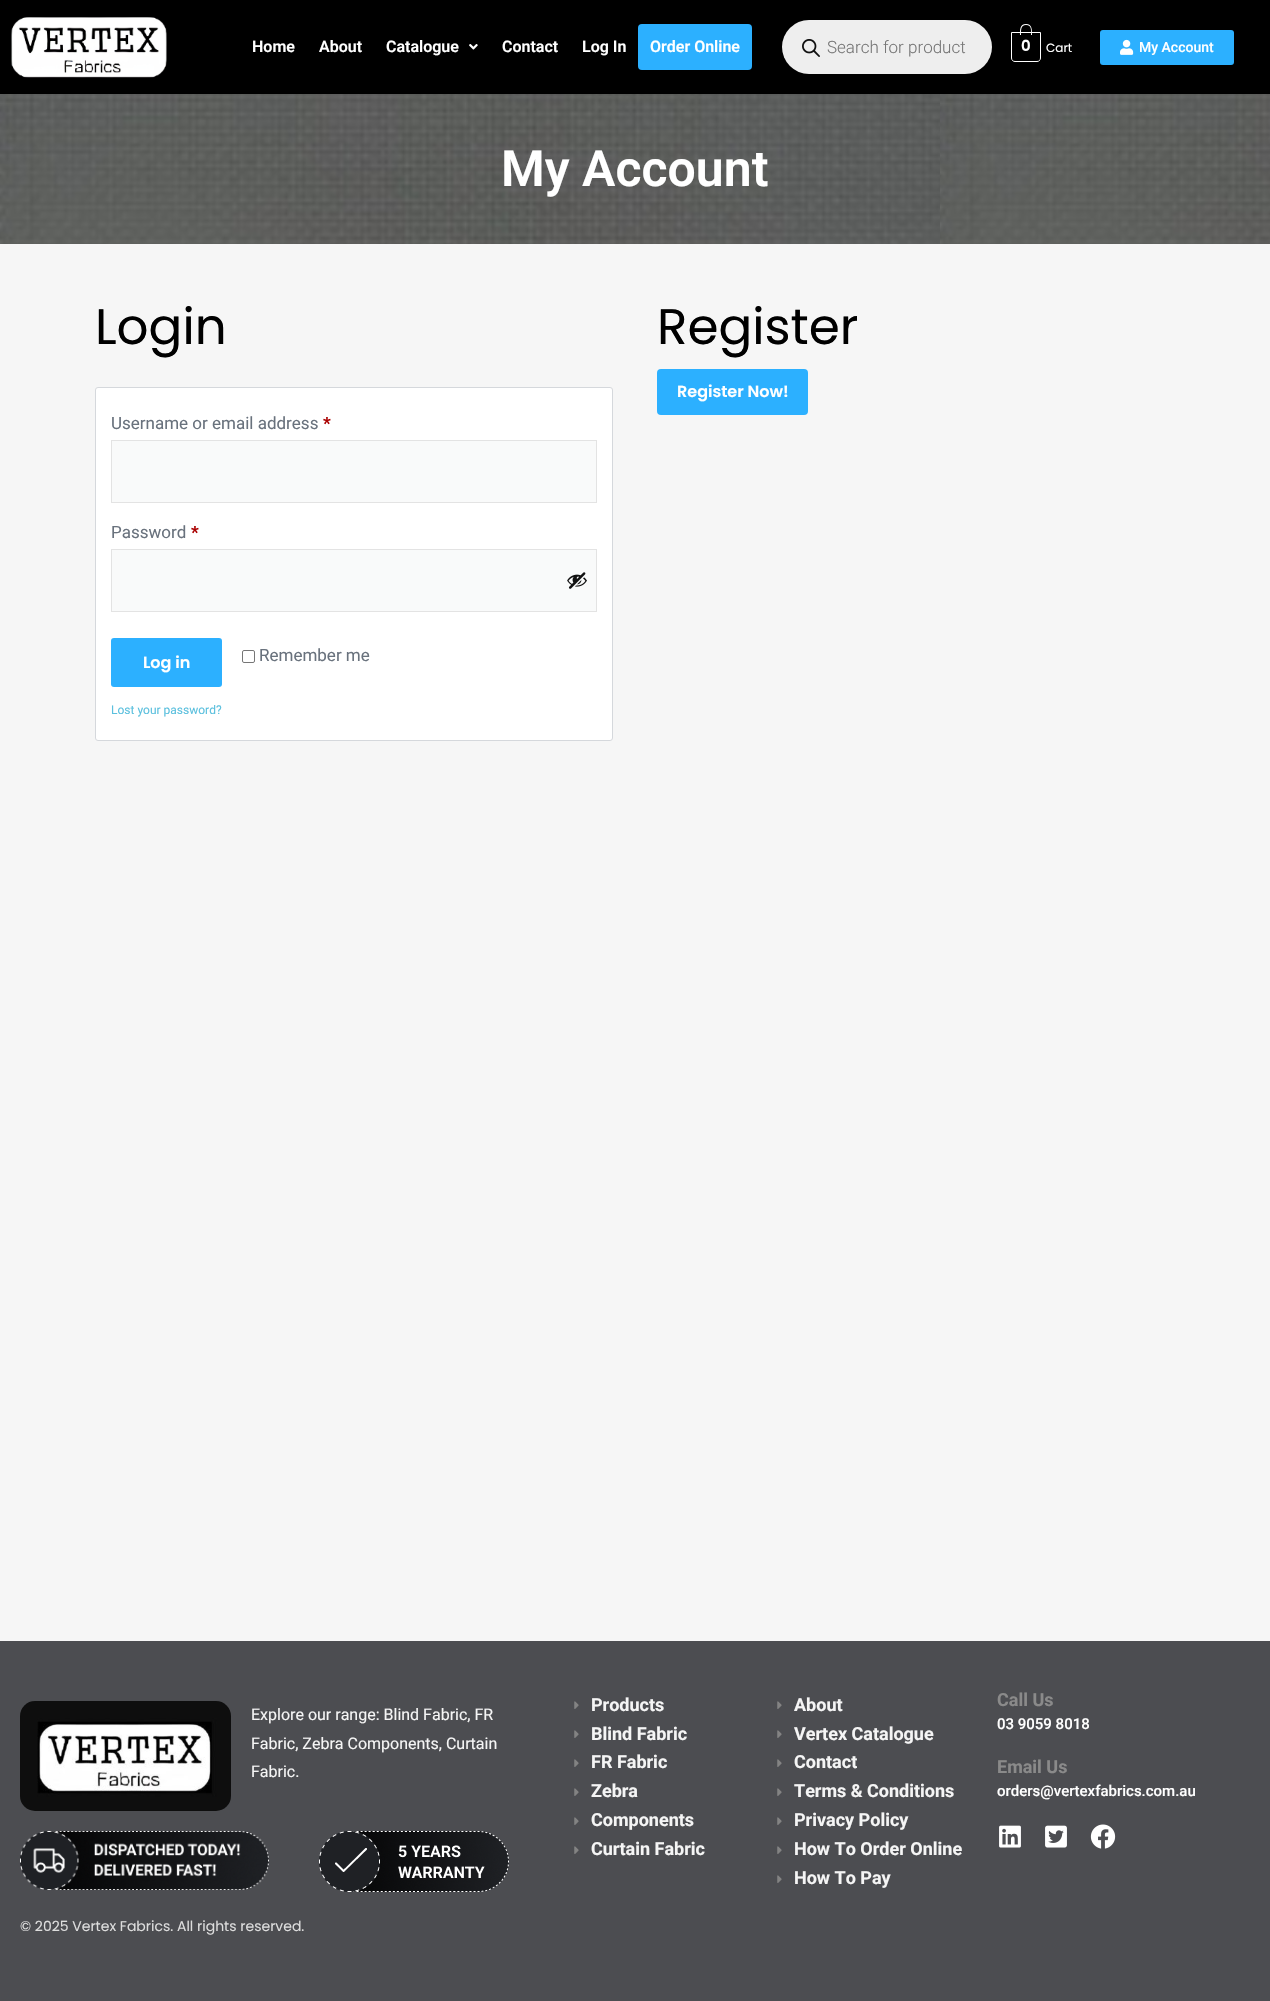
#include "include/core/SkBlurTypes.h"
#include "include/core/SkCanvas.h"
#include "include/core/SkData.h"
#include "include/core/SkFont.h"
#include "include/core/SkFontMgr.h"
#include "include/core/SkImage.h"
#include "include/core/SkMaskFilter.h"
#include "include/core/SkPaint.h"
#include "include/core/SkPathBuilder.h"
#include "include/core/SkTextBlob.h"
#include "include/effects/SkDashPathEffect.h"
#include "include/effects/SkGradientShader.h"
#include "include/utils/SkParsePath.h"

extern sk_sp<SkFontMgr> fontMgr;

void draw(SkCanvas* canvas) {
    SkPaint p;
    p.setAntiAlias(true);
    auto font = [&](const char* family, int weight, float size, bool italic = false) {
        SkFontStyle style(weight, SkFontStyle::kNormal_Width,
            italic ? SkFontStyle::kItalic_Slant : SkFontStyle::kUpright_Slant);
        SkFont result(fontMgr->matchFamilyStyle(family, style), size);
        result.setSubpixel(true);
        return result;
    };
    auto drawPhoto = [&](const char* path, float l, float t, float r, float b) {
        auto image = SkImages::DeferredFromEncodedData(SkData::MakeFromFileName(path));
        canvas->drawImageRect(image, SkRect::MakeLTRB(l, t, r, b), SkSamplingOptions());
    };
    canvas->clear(0xFFF6F6F6);
    p.setColor(0xFF000000);
    canvas->drawRect(SkRect::MakeLTRB(0, 0, 1270, 94), p);
    drawPhoto("media/1.png", 11, 17, 167, 78);
    auto font1 = font("Roboto", 600, 16);
    p.setColor(0xFFFFFFFF);
    {
        const struct { const char* s; float x, y; } items[] = {
            {"Home", 252, 52},
            {"About", 319, 52},
            {"Catalogue", 386, 52},
        };
        for (auto [s, x, y] : items) {
            canvas->drawString(s, x, y, font1, p);
        }
    }
    drawPhoto("media/2.png", 469, 44, 478, 50);
    canvas->drawString("Contact", 502, 52, font1, p);
    canvas->drawString("Log In", 582, 52, font1, p);
    p.setColor(0xFF2CB0FF);
    canvas->drawRoundRect(SkRect::MakeLTRB(638, 24, 752, 70), 4, 4, p);
    p.setColor(0xFFFFFFFF);
    canvas->drawString("Order Online", 650, 52, font1, p);
    p.setColor(0xFFEEEEEE);
    canvas->drawRoundRect(SkRect::MakeLTRB(782, 20, 992, 74), 27, 27, p);
    drawPhoto("media/3.png", 802, 39, 820, 57);
    auto font2 = font("Roboto", 300, 17);
    p.setColor(0xFF777777);
    canvas->drawString("Search for product", 827, 53, font2, p);
    p.setStyle(SkPaint::kStroke_Style);
    p.setStrokeWidth(1);
    p.setColor(0xFFFFFFFF);
    canvas->drawPath(SkPathBuilder().moveTo(1011.5f, 32.5f).lineTo(1040.5f, 32.5f).lineTo(1040.5f, 58).cubicTo(1040.5f, 60, 1039, 61.5f, 1037, 61.5f).lineTo(1015, 61.5f).cubicTo(1013, 61.5f, 1011.5f, 60, 1011.5f, 58).close().detach(), p);
    p.setStyle(SkPaint::kFill_Style);
    canvas->drawPath(SkPathBuilder(SkPathFillType::kEvenOdd).moveTo(1026, 24).cubicTo(1032.5f, 24, 1032, 30.5f, 1032, 35).lineTo(1020, 35).cubicTo(1020, 30.5f, 1019.5f, 24, 1026, 24).close().moveTo(1026, 25).cubicTo(1032, 25, 1031, 31, 1031, 35).lineTo(1021, 35).cubicTo(1021, 31, 1020.5f, 25, 1026, 25).close().detach(), p);
    auto font3 = font("Poppins", 600, 15);
    canvas->drawString("0", 1021, 51, font3, p);
    auto font4 = font("Poppins", 400, 12);
    canvas->drawString("Cart", 1046, 52, font4, p);
    p.setColor(0xFF2CB0FF);
    canvas->drawRoundRect(SkRect::MakeLTRB(1100, 30, 1234, 65), 3, 3, p);
    drawPhoto("media/4.png", 1120, 39, 1134, 55);
    auto font5 = font("Roboto", 500, 14);
    p.setColor(0xFFFFFFFF);
    canvas->drawString("My Account", 1139, 52, font5, p);
    drawPhoto("media/5.png", 0, 94, 1270, 244);
    auto font6 = font("Roboto", 600, 50);
    canvas->drawString("My Account", 501, 186, font6, p);
    auto font7 = font("Poppins", 400, 50);
    p.setColor(0xFF000000);
    canvas->drawString("Login", 95, 344, font7, p);
    p.setColor(0xFFFFFFFF);
    canvas->drawRoundRect(SkRect::MakeLTRB(95.5f, 387.5f, 612.5f, 740.5f), 2.5f, 2.5f, p);
    p.setStyle(SkPaint::kStroke_Style);
    p.setColor(0xFFD5D8DC);
    canvas->drawRoundRect(SkRect::MakeLTRB(95.5f, 387.5f, 612.5f, 740.5f), 2.5f, 2.5f, p);
    auto font8 = font("Roboto", 400, 17);
    p.setStyle(SkPaint::kFill_Style);
    p.setColor(0xFF69727D);
    canvas->drawString("Username or email address", 111, 429, font8, p);
    auto font9 = font("Roboto", 700, 17);
    p.setColor(0xFFAA0000);
    canvas->drawString("*", 323, 429, font9, p);
    p.setColor(0xFFF9FAFA);
    canvas->drawRect(SkRect::MakeLTRB(111.5f, 440.5f, 596.5f, 502.5f), p);
    p.setStyle(SkPaint::kStroke_Style);
    p.setColor(0xFFE3E3E3);
    canvas->drawRect(SkRect::MakeLTRB(111.5f, 440.5f, 596.5f, 502.5f), p);
    p.setStyle(SkPaint::kFill_Style);
    p.setColor(0xFF69727D);
    canvas->drawString("Password", 111, 538, font8, p);
    p.setColor(0xFFAA0000);
    canvas->drawString("*", 191, 538, font9, p);
    p.setColor(0xFFF9FAFA);
    canvas->drawRect(SkRect::MakeLTRB(111.5f, 549.5f, 596.5f, 611.5f), p);
    p.setStyle(SkPaint::kStroke_Style);
    p.setColor(0xFFE3E3E3);
    canvas->drawRect(SkRect::MakeLTRB(111.5f, 549.5f, 596.5f, 611.5f), p);
    drawPhoto("media/6.png", 567, 572, 587, 589);
    p.setStyle(SkPaint::kFill_Style);
    p.setColor(0xFF2CB0FF);
    canvas->drawRoundRect(SkRect::MakeLTRB(111, 638, 222, 687), 3, 3, p);
    auto font10 = font("Poppins", 600, 16);
    p.setColor(0xFFFFFFFF);
    canvas->drawString("Log in", 143, 668, font10, p);
    p.setStyle(SkPaint::kStroke_Style);
    p.setColor(0xFF767676);
    canvas->drawRoundRect(SkRect::MakeLTRB(242.5f, 650.5f, 254.5f, 662.5f), 1.5f, 1.5f, p);
    p.setStyle(SkPaint::kFill_Style);
    p.setColor(0xFF69727D);
    canvas->drawString("Remember me", 259, 661, font8, p);
    auto font11 = font("Roboto", 400, 12);
    p.setColor(0xFF5BC0DE);
    canvas->drawString("Lost your password?", 111, 714, font11, p);
    p.setColor(0xFF000000);
    canvas->drawString("Register", 657, 344, font7, p);
    p.setColor(0xFF2CB0FF);
    canvas->drawRoundRect(SkRect::MakeLTRB(657, 369, 808, 415), 4, 4, p);
    p.setColor(0xFFFFFFFF);
    canvas->drawString("Register Now!", 677, 397, font10, p);
    p.setColor(0xFF4C4D51);
    canvas->drawRect(SkRect::MakeLTRB(0, 1641, 1270, 2001), p);
    drawPhoto("media/7.png", 20, 1701, 231, 1811);
    auto font12 = font("Roboto", 400, 16);
    p.setColor(0xFFF5F5F5);
    {
        const struct { const char* s; float x, y; } items[] = {
            {"Explore our range: Blind Fabric, FR", 251, 1720},
            {"Fabric, Zebra Components, Curtain", 251, 1749},
            {"Fabric.", 251, 1777},
        };
        for (auto [s, x, y] : items) {
            canvas->drawString(s, x, y, font12, p);
        }
    }
    drawPhoto("media/8.png", 20, 1831, 269, 1890);
    drawPhoto("media/9.png", 319, 1831, 509, 1892);
    auto font13 = font("Poppins", 400, 14);
    p.setColor(0xFFDDDDDD);
    canvas->drawString("© 2025 Vertex Fabrics. All rights reserved.", 20, 1931, font13, p);
    drawPhoto("media/10.png", 574, 1701, 579, 1709);
    auto font14 = font("Roboto", 700, 18);
    p.setColor(0xFFF5F5F5);
    canvas->drawString("Products", 591, 1711, font14, p);
    drawPhoto("media/10.png", 574, 1730, 579, 1738);
    canvas->drawString("Blind Fabric", 591, 1740, font14, p);
    drawPhoto("media/10.png", 574, 1759, 579, 1767);
    canvas->drawString("FR Fabric", 591, 1768, font14, p);
    drawPhoto("media/10.png", 574, 1788, 579, 1796);
    canvas->drawString("Zebra", 591, 1797, font14, p);
    drawPhoto("media/10.png", 574, 1817, 579, 1825);
    canvas->drawString("Components", 591, 1826, font14, p);
    drawPhoto("media/10.png", 574, 1846, 579, 1854);
    canvas->drawString("Curtain Fabric", 591, 1855, font14, p);
    drawPhoto("media/10.png", 777, 1701, 782, 1709);
    canvas->drawString("About", 794, 1711, font14, p);
    drawPhoto("media/10.png", 777, 1730, 782, 1738);
    canvas->drawString("Vertex Catalogue", 794, 1740, font14, p);
    drawPhoto("media/10.png", 777, 1759, 782, 1767);
    canvas->drawString("Contact", 794, 1768, font14, p);
    drawPhoto("media/10.png", 777, 1788, 782, 1796);
    canvas->drawString("Terms & Conditions", 794, 1797, font14, p);
    drawPhoto("media/10.png", 777, 1817, 782, 1825);
    canvas->drawString("Privacy Policy", 794, 1826, font14, p);
    drawPhoto("media/10.png", 777, 1846, 782, 1854);
    canvas->drawString("How To Order Online", 794, 1855, font14, p);
    drawPhoto("media/10.png", 777, 1875, 782, 1883);
    canvas->drawString("How To Pay", 794, 1884, font14, p);
    p.setColor(0xFF8A8A8A);
    canvas->drawString("Call Us", 997, 1706, font14, p);
    auto font15 = font("Roboto", 500, 15);
    p.setColor(0xFFFFFFFF);
    canvas->drawString("03 9059 8018", 997, 1729, font15, p);
    p.setColor(0xFF8A8A8A);
    canvas->drawString("Email Us", 997, 1773, font14, p);
    p.setColor(0xFFFFFFFF);
    canvas->drawString("orders@vertexfabrics.com.au", 997, 1796, font15, p);
    drawPhoto("media/11.png", 999, 1825, 1021, 1848);
    drawPhoto("media/12.png", 1045, 1825, 1067, 1848);
    drawPhoto("media/13.png", 1090, 1824, 1116, 1849);
}
